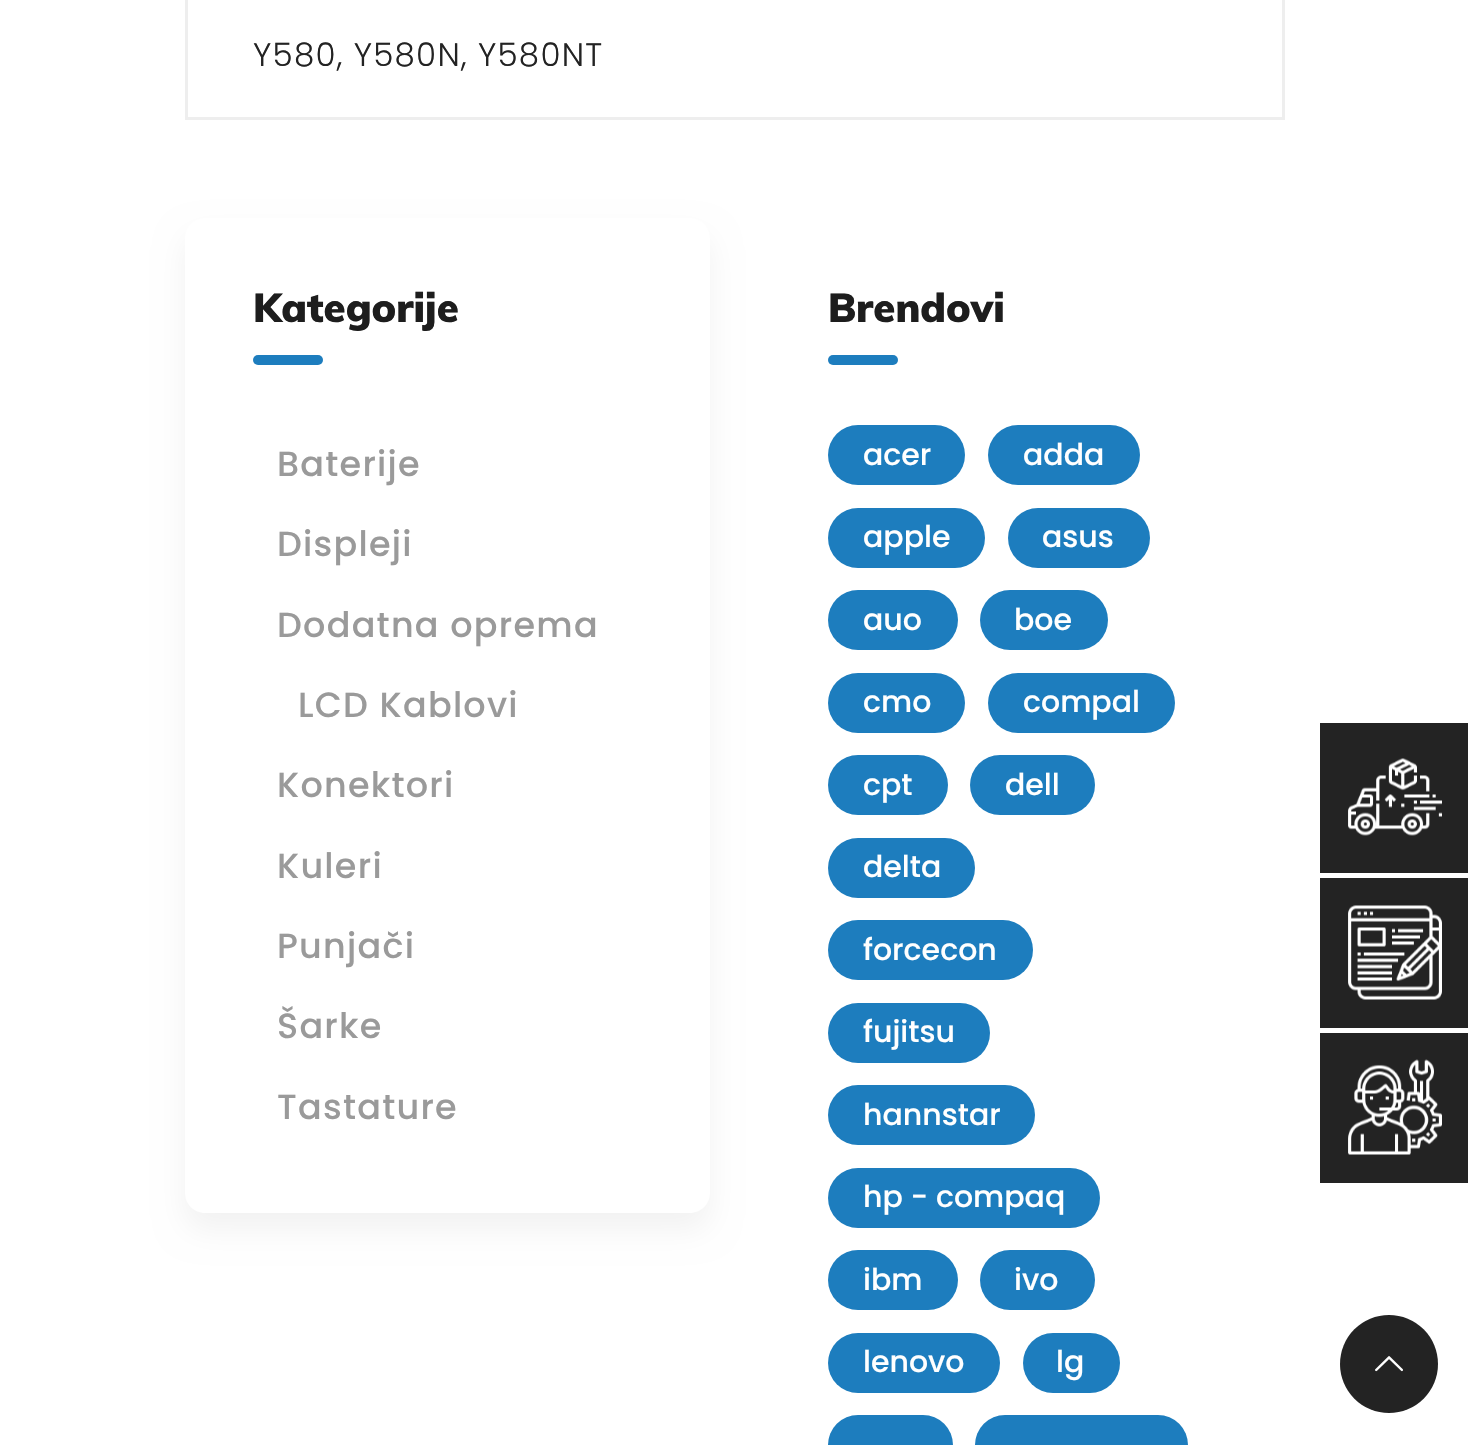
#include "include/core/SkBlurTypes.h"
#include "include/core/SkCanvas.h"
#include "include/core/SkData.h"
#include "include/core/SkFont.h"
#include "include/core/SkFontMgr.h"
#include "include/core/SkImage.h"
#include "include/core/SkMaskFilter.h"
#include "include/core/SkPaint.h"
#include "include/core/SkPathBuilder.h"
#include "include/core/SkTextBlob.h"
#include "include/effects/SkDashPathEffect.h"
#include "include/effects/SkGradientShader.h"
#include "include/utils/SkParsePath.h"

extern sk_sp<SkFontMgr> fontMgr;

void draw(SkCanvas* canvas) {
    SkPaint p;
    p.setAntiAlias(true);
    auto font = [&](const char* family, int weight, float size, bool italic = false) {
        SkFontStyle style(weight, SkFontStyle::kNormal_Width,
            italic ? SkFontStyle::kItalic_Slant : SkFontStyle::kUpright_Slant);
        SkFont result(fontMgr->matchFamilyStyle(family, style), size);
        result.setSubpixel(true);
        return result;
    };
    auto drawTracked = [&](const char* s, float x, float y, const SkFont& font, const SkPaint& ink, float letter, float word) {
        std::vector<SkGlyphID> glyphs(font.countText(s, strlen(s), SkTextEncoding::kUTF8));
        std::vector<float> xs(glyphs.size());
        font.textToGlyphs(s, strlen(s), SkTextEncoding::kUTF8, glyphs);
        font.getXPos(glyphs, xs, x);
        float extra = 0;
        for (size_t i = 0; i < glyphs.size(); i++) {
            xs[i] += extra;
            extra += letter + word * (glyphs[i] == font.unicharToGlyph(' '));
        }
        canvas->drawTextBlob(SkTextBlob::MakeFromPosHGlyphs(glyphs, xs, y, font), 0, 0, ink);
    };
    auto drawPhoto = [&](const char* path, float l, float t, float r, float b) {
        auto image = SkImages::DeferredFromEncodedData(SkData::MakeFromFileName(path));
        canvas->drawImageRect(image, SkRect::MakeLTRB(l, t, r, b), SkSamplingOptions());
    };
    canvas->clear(0xFFFFFFFF);
    p.setStyle(SkPaint::kStroke_Style);
    p.setStrokeWidth(3);
    p.setColor(0xFFEEEEEE);
    canvas->drawRect(SkRect::MakeLTRB(186.5f, -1.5f, 1283.5f, 118.5f), p);
    auto font1 = font("Poppins", 300, 32.5f);
    p.setStyle(SkPaint::kFill_Style);
    p.setColor(0xFF232323);
    drawTracked("Y580, Y580N, Y580NT", 253, 66, font1, p, 1.25f, 0);
    canvas->save();
    canvas->clipPath(SkPathBuilder(SkPathFillType::kEvenOdd).moveTo(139, 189).lineTo(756, 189).lineTo(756, 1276).lineTo(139, 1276).close().moveTo(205, 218).lineTo(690, 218).cubicTo(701, 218, 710, 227, 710, 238).lineTo(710, 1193).cubicTo(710, 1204, 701, 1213, 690, 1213).lineTo(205, 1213).cubicTo(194, 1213, 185, 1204, 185, 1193).lineTo(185, 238).cubicTo(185, 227, 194, 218, 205, 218).close().detach(), true);
    p.setColor(0x0D000000);
    p.setMaskFilter(SkMaskFilter::MakeBlur(kNormal_SkBlurStyle, 15));
    canvas->drawRoundRect(SkRect::MakeLTRB(185, 235, 710, 1230), 20, 20, p);
    p.setMaskFilter(nullptr);
    canvas->restore();
    auto font2 = font("Muli", 900, 40);
    p.setColor(0xFF1D1D1D);
    canvas->drawString("Kategorije", 253, 322, font2, p);
    p.setColor(0xFF1D7DBE);
    canvas->drawRoundRect(SkRect::MakeLTRB(253, 355, 323, 365), 5, 5, p);
    auto font3 = font("Poppins", 500, 35);
    p.setColor(0xFF9A9A9A);
    {
        const struct { const char* s; float x, y; } items[] = {
            {"Baterije", 277, 476},
            {"Displeji", 277, 556},
            {"Dodatna oprema", 277, 637},
            {"LCD Kablovi", 298, 717},
            {"Konektori", 277, 797},
            {"Kuleri", 277, 878},
            {"Punjači", 277, 958},
            {"Šarke", 277, 1038},
            {"Tastature", 277, 1119},
        };
        for (auto [s, x, y] : items) {
            drawTracked(s, x, y, font3, p, 1.25f, 0);
        }
    }
    p.setColor(0xFF1D1D1D);
    canvas->drawString("Brendovi", 828, 322, font2, p);
    p.setColor(0xFF1D7DBE);
    canvas->drawRoundRect(SkRect::MakeLTRB(828, 355, 898, 365), 5, 5, p);
    canvas->drawRoundRect(SkRect::MakeLTRB(828, 425, 965, 485), 30, 30, p);
    auto font4 = font("Poppins", 500, 30);
    p.setColor(0xFFFFFFFF);
    canvas->drawString("acer", 863, 465, font4, p);
    p.setColor(0xFF1D7DBE);
    canvas->drawRoundRect(SkRect::MakeLTRB(988, 425, 1140, 485), 30, 30, p);
    p.setColor(0xFFFFFFFF);
    canvas->drawString("adda", 1023, 465, font4, p);
    p.setColor(0xFF1D7DBE);
    canvas->drawRoundRect(SkRect::MakeLTRB(828, 508, 985, 568), 30, 30, p);
    p.setColor(0xFFFFFFFF);
    canvas->drawString("apple", 863, 547, font4, p);
    p.setColor(0xFF1D7DBE);
    canvas->drawRoundRect(SkRect::MakeLTRB(1008, 508, 1150, 568), 30, 30, p);
    p.setColor(0xFFFFFFFF);
    canvas->drawString("asus", 1042, 547, font4, p);
    p.setColor(0xFF1D7DBE);
    canvas->drawRoundRect(SkRect::MakeLTRB(828, 590, 958, 650), 30, 30, p);
    p.setColor(0xFFFFFFFF);
    canvas->drawString("auo", 863, 630, font4, p);
    p.setColor(0xFF1D7DBE);
    canvas->drawRoundRect(SkRect::MakeLTRB(980, 590, 1108, 650), 30, 30, p);
    p.setColor(0xFFFFFFFF);
    canvas->drawString("boe", 1014, 630, font4, p);
    p.setColor(0xFF1D7DBE);
    canvas->drawRoundRect(SkRect::MakeLTRB(828, 673, 965, 733), 30, 30, p);
    p.setColor(0xFFFFFFFF);
    canvas->drawString("cmo", 863, 712, font4, p);
    p.setColor(0xFF1D7DBE);
    canvas->drawRoundRect(SkRect::MakeLTRB(988, 673, 1175, 733), 30, 30, p);
    p.setColor(0xFFFFFFFF);
    canvas->drawString("compal", 1023, 712, font4, p);
    p.setColor(0xFF1D7DBE);
    canvas->drawRoundRect(SkRect::MakeLTRB(828, 755, 948, 815), 30, 30, p);
    p.setColor(0xFFFFFFFF);
    canvas->drawString("cpt", 863, 795, font4, p);
    p.setColor(0xFF1D7DBE);
    canvas->drawRoundRect(SkRect::MakeLTRB(970, 755, 1095, 815), 30, 30, p);
    p.setColor(0xFFFFFFFF);
    canvas->drawString("dell", 1005, 795, font4, p);
    p.setColor(0xFF1D7DBE);
    canvas->drawRoundRect(SkRect::MakeLTRB(828, 838, 975, 898), 30, 30, p);
    p.setColor(0xFFFFFFFF);
    canvas->drawString("delta", 863, 877, font4, p);
    p.setColor(0xFF1D7DBE);
    canvas->drawRoundRect(SkRect::MakeLTRB(828, 920, 1033, 980), 30, 30, p);
    p.setColor(0xFFFFFFFF);
    canvas->drawString("forcecon", 863, 960, font4, p);
    p.setColor(0xFF1D7DBE);
    canvas->drawRoundRect(SkRect::MakeLTRB(828, 1003, 990, 1063), 30, 30, p);
    p.setColor(0xFFFFFFFF);
    canvas->drawString("fujitsu", 863, 1042, font4, p);
    p.setColor(0xFF1D7DBE);
    canvas->drawRoundRect(SkRect::MakeLTRB(828, 1085, 1035, 1145), 30, 30, p);
    p.setColor(0xFFFFFFFF);
    canvas->drawString("hannstar", 863, 1125, font4, p);
    p.setColor(0xFF1D7DBE);
    canvas->drawRoundRect(SkRect::MakeLTRB(828, 1168, 1100, 1228), 30, 30, p);
    p.setColor(0xFFFFFFFF);
    canvas->drawString("hp - compaq", 863, 1207, font4, p);
    p.setColor(0xFF1D7DBE);
    canvas->drawRoundRect(SkRect::MakeLTRB(828, 1250, 958, 1310), 30, 30, p);
    p.setColor(0xFFFFFFFF);
    canvas->drawString("ibm", 863, 1290, font4, p);
    p.setColor(0xFF1D7DBE);
    canvas->drawRoundRect(SkRect::MakeLTRB(980, 1250, 1095, 1310), 30, 30, p);
    p.setColor(0xFFFFFFFF);
    canvas->drawString("ivo", 1014, 1290, font4, p);
    p.setColor(0xFF1D7DBE);
    canvas->drawRoundRect(SkRect::MakeLTRB(828, 1333, 1000, 1393), 30, 30, p);
    p.setColor(0xFFFFFFFF);
    canvas->drawString("lenovo", 863, 1372, font4, p);
    p.setColor(0xFF1D7DBE);
    canvas->drawRoundRect(SkRect::MakeLTRB(1023, 1333, 1120, 1393), 30, 30, p);
    p.setColor(0xFFFFFFFF);
    canvas->drawString("lg", 1056, 1372, font4, p);
    p.setColor(0xFF1D7DBE);
    canvas->drawRoundRect(SkRect::MakeLTRB(828, 1415, 953, 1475), 30, 30, p);
    canvas->drawRoundRect(SkRect::MakeLTRB(975, 1415, 1188, 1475), 30, 30, p);
    p.setColor(0xFF232323);
    canvas->drawRect(SkRect::MakeLTRB(1320, 723, 1468, 873), p);
    drawPhoto("media/1.png", 1348, 758, 1442, 836);
    canvas->drawRect(SkRect::MakeLTRB(1320, 878, 1468, 1028), p);
    drawPhoto("media/2.png", 1348, 905, 1442, 1000);
    canvas->drawRect(SkRect::MakeLTRB(1320, 1033, 1468, 1183), p);
    drawPhoto("media/3.png", 1348, 1059, 1442, 1155);
    canvas->drawCircle(1389, 1364, 49, p);
    drawPhoto("media/4.png", 1375, 1356, 1403, 1372);
}
